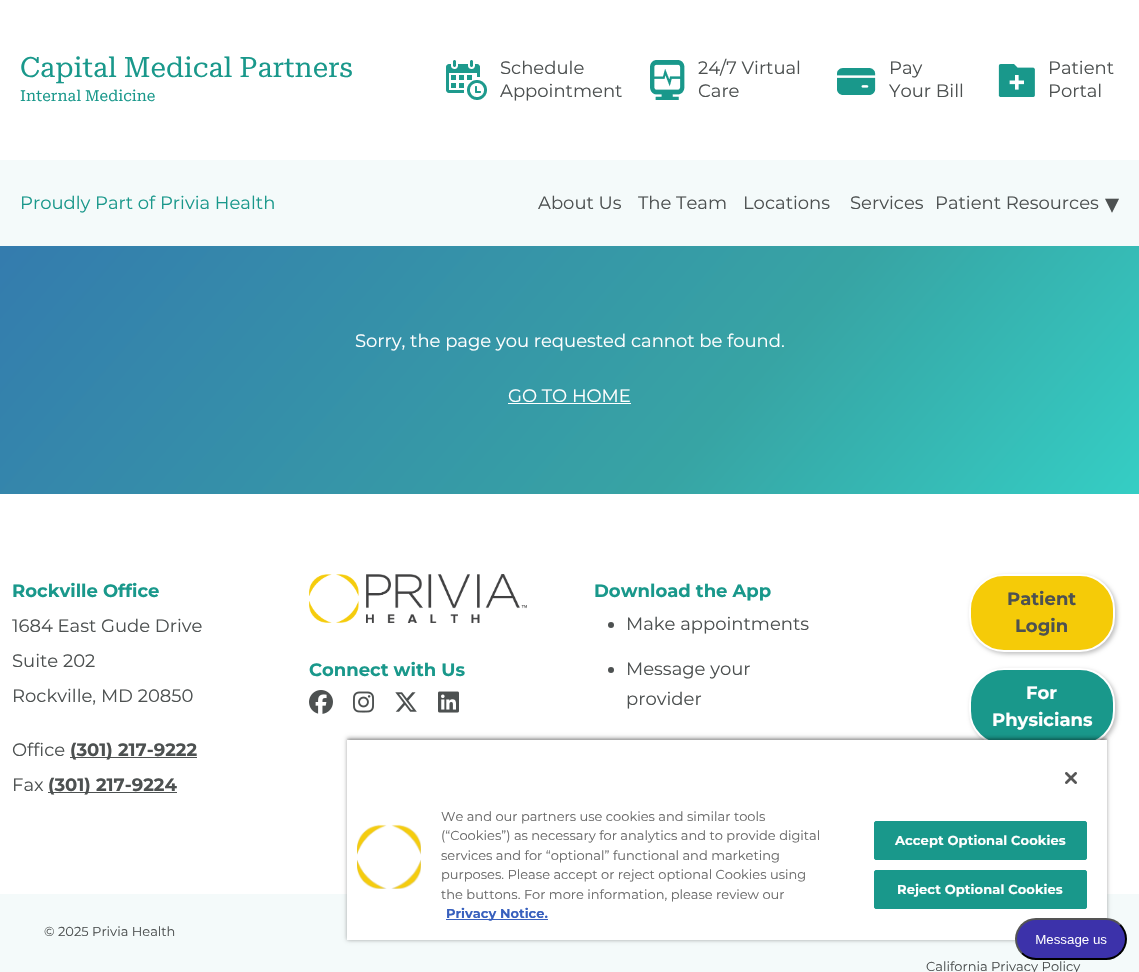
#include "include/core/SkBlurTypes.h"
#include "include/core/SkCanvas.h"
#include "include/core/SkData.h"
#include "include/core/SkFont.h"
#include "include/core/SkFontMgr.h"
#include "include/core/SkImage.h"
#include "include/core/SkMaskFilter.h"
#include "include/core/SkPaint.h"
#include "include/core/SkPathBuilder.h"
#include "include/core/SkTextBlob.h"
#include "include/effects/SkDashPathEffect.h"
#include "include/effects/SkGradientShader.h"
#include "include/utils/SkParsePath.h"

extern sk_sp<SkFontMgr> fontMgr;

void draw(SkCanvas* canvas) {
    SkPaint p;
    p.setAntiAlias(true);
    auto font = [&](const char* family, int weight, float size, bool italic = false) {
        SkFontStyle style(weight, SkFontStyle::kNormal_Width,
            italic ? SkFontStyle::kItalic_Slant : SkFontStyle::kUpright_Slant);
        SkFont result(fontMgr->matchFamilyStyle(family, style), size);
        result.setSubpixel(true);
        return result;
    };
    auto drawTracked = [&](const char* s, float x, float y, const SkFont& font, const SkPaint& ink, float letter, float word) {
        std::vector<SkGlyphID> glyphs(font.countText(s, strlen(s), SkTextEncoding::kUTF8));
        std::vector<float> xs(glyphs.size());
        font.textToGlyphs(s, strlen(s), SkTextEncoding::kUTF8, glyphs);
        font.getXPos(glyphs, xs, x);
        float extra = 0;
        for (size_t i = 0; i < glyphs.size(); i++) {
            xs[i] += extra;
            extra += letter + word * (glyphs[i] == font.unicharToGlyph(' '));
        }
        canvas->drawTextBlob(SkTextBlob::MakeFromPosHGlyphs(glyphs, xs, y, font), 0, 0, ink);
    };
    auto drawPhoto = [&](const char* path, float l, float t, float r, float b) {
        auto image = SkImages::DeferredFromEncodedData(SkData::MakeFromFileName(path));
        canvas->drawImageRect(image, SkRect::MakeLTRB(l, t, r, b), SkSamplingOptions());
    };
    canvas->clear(0xFFFFFFFF);
    auto font1 = font("Roboto Serif", 400, 28);
    p.setColor(0xFF19988B);
    canvas->drawString("Capital Medical Partners", 20, 77, font1, p);
    auto font2 = font("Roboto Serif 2", 400, 15);
    canvas->drawString("Internal Medicine", 20, 101, font2, p);
    drawPhoto("media/1.png", 446, 60, 487, 100);
    auto font3 = font("Montserrat", 400, 18);
    p.setColor(0xFF4D5151);
    canvas->drawString("Schedule", 500, 74, font3, p);
    canvas->drawString("Appointment", 500, 97, font3, p);
    drawPhoto("media/2.png", 650, 60, 685, 100);
    canvas->drawString("24/7 Virtual", 698, 74, font3, p);
    canvas->drawString("Care", 698, 97, font3, p);
    drawPhoto("media/3.png", 837, 68, 876, 95);
    canvas->drawString("Pay", 889, 74, font3, p);
    canvas->drawString("Your Bill", 889, 97, font3, p);
    drawPhoto("media/4.png", 998, 64, 1035, 97);
    canvas->drawString("Patient", 1048, 74, font3, p);
    canvas->drawString("Portal", 1048, 97, font3, p);
    p.setColor(0xFFF4FAFA);
    canvas->drawRect(SkRect::MakeLTRB(0, 160, 1139, 246), p);
    p.setColor(0xFF19988B);
    canvas->drawString("Proudly Part of Privia Health", 20, 209, font3, p);
    p.setColor(0xFF4D5151);
    {
        const struct { const char* s; float x, y; } items[] = {
            {"About Us", 538, 209},
            {"The Team", 638, 209},
            {"Locations", 743, 209},
            {"Services", 850, 209},
            {"Patient Resources", 935, 209},
        };
        for (auto [s, x, y] : items) {
            canvas->drawString(s, x, y, font3, p);
        }
    }
    auto font4 = font("DejaVu Sans", 400, 28);
    canvas->drawString("▾", 1105, 213, font4, p);
    {
        const SkColor colors[] = {0xFF3373B0, 0xFF37A4A4, 0xFF32FFEA};
        const float stops[] = {0, 0.5f, 1};
        const SkPoint ends[] = {{77, -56}, {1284, 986}};
        p.setShader(SkGradientShader::MakeLinear(ends, colors, stops, 3, SkTileMode::kClamp));
        p.setAlpha(255);
    }
    canvas->drawRect(SkRect::MakeLTRB(0, 246, 1139, 494), p);
    p.setShader(nullptr);
    p.setColor(0xFFFFFFFF);
    canvas->drawString("Sorry, the page you requested cannot be found.", 355, 347, font3, p);
    canvas->drawString("GO TO HOME", 508, 402, font3, p);
    canvas->drawRect(SkRect::MakeLTRB(508, 403, 631, 404), p);
    auto font5 = font("Montserrat", 700, 18);
    p.setColor(0xFF19988B);
    canvas->drawString("Rockville Office", 12, 597, font5, p);
    p.setColor(0xFF4D5151);
    {
        const struct { const char* s; float x, y; } items[] = {
            {"1684 East Gude Drive", 12, 632},
            {"Suite 202", 12, 667},
            {"Rockville, MD 20850", 12, 702},
            {"Office", 12, 756},
        };
        for (auto [s, x, y] : items) {
            canvas->drawString(s, x, y, font3, p);
        }
    }
    canvas->drawRect(SkRect::MakeLTRB(70, 757, 197, 758), p);
    canvas->drawString("(301) 217-9222", 70, 756, font5, p);
    canvas->drawString("Fax", 12, 791, font3, p);
    canvas->drawRect(SkRect::MakeLTRB(48, 792, 177, 793), p);
    canvas->drawString("(301) 217-9224", 48, 791, font5, p);
    drawPhoto("media/5.png", 309, 574, 527, 623);
    p.setColor(0xFF19988B);
    canvas->drawString("Connect with Us", 309, 676, font5, p);
    drawPhoto("media/6.png", 309, 690, 333, 714);
    drawPhoto("media/7.png", 353, 691, 374, 713);
    drawPhoto("media/8.png", 395, 692, 417, 712);
    drawPhoto("media/9.png", 438, 691, 459, 713);
    canvas->drawString("Download the App", 594, 597, font5, p);
    p.setColor(0xFF4D5151);
    canvas->drawCircle(611, 625, 3, p);
    canvas->drawString("Make appointments", 626, 630, font3, p);
    canvas->drawCircle(611, 670, 3, p);
    canvas->drawString("Message your", 626, 675, font3, p);
    canvas->drawString("provider", 626, 705, font3, p);
    p.setColor(0x40000000);
    p.setMaskFilter(SkMaskFilter::MakeBlur(kNormal_SkBlurStyle, 2));
    canvas->drawRoundRect(SkRect::MakeLTRB(971, 576, 1117, 654), 35, 35, p);
    p.setMaskFilter(nullptr);
    p.setColor(0xFFF5CB08);
    canvas->drawRoundRect(SkRect::MakeLTRB(970, 575, 1114, 651), 34, 34, p);
    p.setStyle(SkPaint::kStroke_Style);
    p.setStrokeWidth(2);
    p.setColor(0xFFFFFFFF);
    canvas->drawRoundRect(SkRect::MakeLTRB(970, 575, 1114, 651), 34, 34, p);
    p.setStyle(SkPaint::kFill_Style);
    p.setColor(0xFF4D5151);
    canvas->drawString("Patient", 1007, 605, font5, p);
    canvas->drawString("Login", 1015, 632, font5, p);
    p.setColor(0x40000000);
    p.setMaskFilter(SkMaskFilter::MakeBlur(kNormal_SkBlurStyle, 2));
    canvas->drawRoundRect(SkRect::MakeLTRB(971, 670, 1117, 748), 35, 35, p);
    p.setMaskFilter(nullptr);
    p.setColor(0xFF19988B);
    canvas->drawRoundRect(SkRect::MakeLTRB(970, 669, 1114, 745), 34, 34, p);
    p.setStyle(SkPaint::kStroke_Style);
    p.setColor(0xFFFFFFFF);
    canvas->drawRoundRect(SkRect::MakeLTRB(970, 669, 1114, 745), 34, 34, p);
    p.setStyle(SkPaint::kFill_Style);
    canvas->drawString("For", 1026, 699, font5, p);
    canvas->drawString("Physicians", 992, 726, font5, p);
    p.setColor(0xFFF4FAFA);
    canvas->drawRect(SkRect::MakeLTRB(0, 894, 1139, 972), p);
    auto font6 = font("Montserrat", 400, 13);
    p.setColor(0xFF4D5151);
    canvas->drawString("© 2025 Privia Health", 44, 936, font6, p);
    canvas->drawString("California Privacy Policy", 926, 971, font6, p);
    p.setColor(0x59000000);
    p.setMaskFilter(SkMaskFilter::MakeBlur(kNormal_SkBlurStyle, 2));
    canvas->drawRect(SkRect::MakeLTRB(347, 738, 1107, 940), p);
    p.setMaskFilter(nullptr);
    canvas->save();
    canvas->clipRect(SkRect::MakeLTRB(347, 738, 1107, 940));
    p.setColor(0x33000000);
    p.setMaskFilter(SkMaskFilter::MakeBlur(kNormal_SkBlurStyle, 2));
    canvas->drawRect(SkRect::MakeLTRB(347, 740, 1107, 940), p);
    p.setMaskFilter(nullptr);
    canvas->restore();
    p.setColor(0xFFFFFFFF);
    canvas->drawRect(SkRect::MakeLTRB(347, 740, 1107, 940), p);
    drawPhoto("media/10.png", 1065, 772, 1077, 784);
    drawPhoto("media/11.png", 357, 824, 421, 889);
    p.setColor(0xFF696969);
    {
        const struct { const char* s; float x, y; } items[] = {
            {"We and our partners use cookies and similar tools", 441, 821},
            {"(“Cookies”) as necessary for analytics and to provide digital", 441, 840},
            {"services and for “optional” functional and marketing", 441, 860},
            {"purposes. Please accept or reject optional Cookies using", 441, 879},
            {"the buttons. For more information, please review our", 441, 899},
        };
        for (auto [s, x, y] : items) {
            canvas->drawString(s, x, y, font6, p);
        }
    }
    p.setColor(0xFF3860BE);
    canvas->drawRect(SkRect::MakeLTRB(446, 919, 548, 920), p);
    auto font7 = font("Montserrat", 700, 13);
    canvas->drawString("Privacy Notice.", 446, 918, font7, p);
    p.setColor(0xFF19988B);
    canvas->drawRoundRect(SkRect::MakeLTRB(874.5f, 821.5f, 1086.5f, 859.5f), 1.5f, 1.5f, p);
    p.setStyle(SkPaint::kStroke_Style);
    p.setStrokeWidth(1);
    canvas->drawRoundRect(SkRect::MakeLTRB(874.5f, 821.5f, 1086.5f, 859.5f), 1.5f, 1.5f, p);
    p.setStyle(SkPaint::kFill_Style);
    p.setColor(0xFFFFFFFF);
    drawTracked("Accept Optional Cookies", 895, 845, font7, p, 0.1f, 0);
    p.setColor(0xFF19988B);
    canvas->drawRoundRect(SkRect::MakeLTRB(874.5f, 870.5f, 1086.5f, 908.5f), 1.5f, 1.5f, p);
    p.setStyle(SkPaint::kStroke_Style);
    canvas->drawRoundRect(SkRect::MakeLTRB(874.5f, 870.5f, 1086.5f, 908.5f), 1.5f, 1.5f, p);
    p.setStyle(SkPaint::kFill_Style);
    p.setColor(0xFFFFFFFF);
    drawTracked("Reject Optional Cookies", 897, 894, font7, p, 0.1f, 0);
    drawPhoto("media/12.png", 1015, 918, 1127, 960);
}
